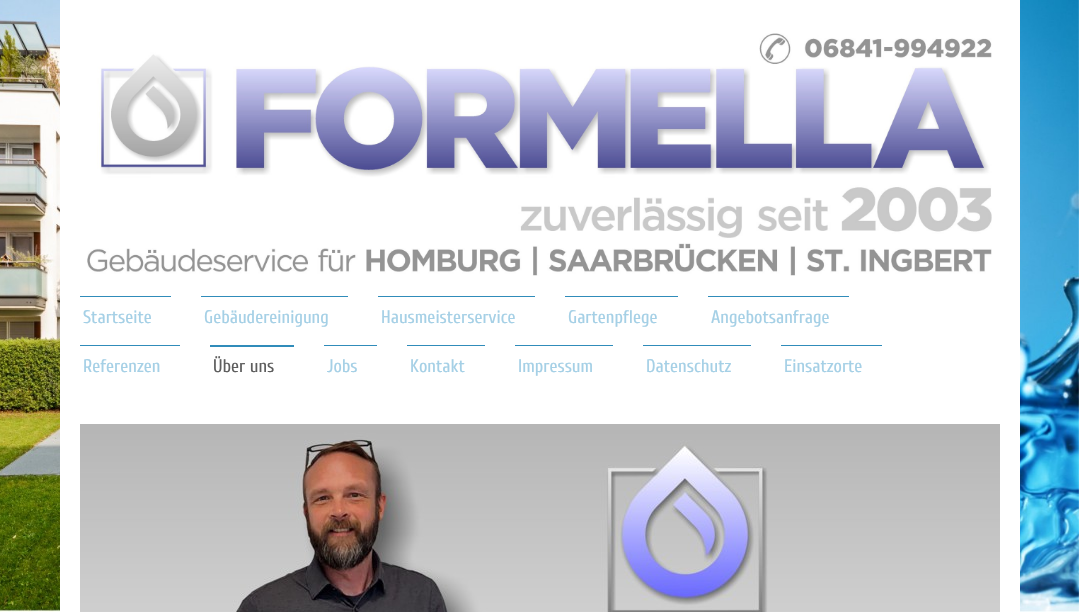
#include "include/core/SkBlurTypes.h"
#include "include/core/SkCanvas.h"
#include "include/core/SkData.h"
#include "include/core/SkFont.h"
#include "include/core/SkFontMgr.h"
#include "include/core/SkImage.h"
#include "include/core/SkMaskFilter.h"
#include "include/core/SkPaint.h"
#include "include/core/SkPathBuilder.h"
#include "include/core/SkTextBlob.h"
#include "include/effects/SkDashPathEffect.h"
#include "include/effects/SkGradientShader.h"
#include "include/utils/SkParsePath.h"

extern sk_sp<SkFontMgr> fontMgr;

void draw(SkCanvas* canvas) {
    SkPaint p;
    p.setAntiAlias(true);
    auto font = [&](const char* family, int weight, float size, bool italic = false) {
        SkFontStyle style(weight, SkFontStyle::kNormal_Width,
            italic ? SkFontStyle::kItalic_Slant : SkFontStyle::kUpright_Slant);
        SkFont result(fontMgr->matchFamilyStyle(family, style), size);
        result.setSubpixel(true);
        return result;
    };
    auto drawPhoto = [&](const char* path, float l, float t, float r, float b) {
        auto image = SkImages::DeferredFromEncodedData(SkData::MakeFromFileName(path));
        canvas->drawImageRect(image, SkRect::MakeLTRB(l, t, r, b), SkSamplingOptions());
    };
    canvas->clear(0xFFFFFFFF);
    drawPhoto("media/1.png", 0, 0, 1079, 612);
    p.setColor(0xFFFFFFFF);
    canvas->drawRect(SkRect::MakeLTRB(60, 0, 1020, 612), p);
    drawPhoto("media/2.png", 87, 33, 992, 276);
    p.setColor(0xFF308CBA);
    canvas->drawRect(SkRect::MakeLTRB(80, 296, 171, 297), p);
    auto font1 = font("Cuprum", 400, 18.25f);
    p.setColor(0xFFA5D0E6);
    canvas->drawString("Startseite", 83, 323, font1, p);
    p.setColor(0xFF308CBA);
    canvas->drawRect(SkRect::MakeLTRB(201, 296, 348, 297), p);
    p.setColor(0xFFA5D0E6);
    canvas->drawString("Gebäudereinigung", 204, 323, font1, p);
    p.setColor(0xFF308CBA);
    canvas->drawRect(SkRect::MakeLTRB(378, 296, 535, 297), p);
    p.setColor(0xFFA5D0E6);
    canvas->drawString("Hausmeisterservice", 381, 323, font1, p);
    p.setColor(0xFF308CBA);
    canvas->drawRect(SkRect::MakeLTRB(565, 296, 678, 297), p);
    p.setColor(0xFFA5D0E6);
    canvas->drawString("Gartenpflege", 568, 323, font1, p);
    p.setColor(0xFF308CBA);
    canvas->drawRect(SkRect::MakeLTRB(708, 296, 849, 297), p);
    p.setColor(0xFFA5D0E6);
    canvas->drawString("Angebotsanfrage", 711, 323, font1, p);
    p.setColor(0xFF308CBA);
    canvas->drawRect(SkRect::MakeLTRB(80, 345, 180, 346), p);
    p.setColor(0xFFA5D0E6);
    canvas->drawString("Referenzen", 83, 372, font1, p);
    p.setColor(0xFF308CBA);
    canvas->drawRect(SkRect::MakeLTRB(210, 345, 294, 347), p);
    p.setColor(0xFF5E5E5E);
    canvas->drawString("Über uns", 213, 372, font1, p);
    p.setColor(0xFF308CBA);
    canvas->drawRect(SkRect::MakeLTRB(324, 345, 377, 346), p);
    p.setColor(0xFFA5D0E6);
    canvas->drawString("Jobs", 327, 372, font1, p);
    p.setColor(0xFF308CBA);
    canvas->drawRect(SkRect::MakeLTRB(407, 345, 485, 346), p);
    p.setColor(0xFFA5D0E6);
    canvas->drawString("Kontakt", 410, 372, font1, p);
    p.setColor(0xFF308CBA);
    canvas->drawRect(SkRect::MakeLTRB(515, 345, 613, 346), p);
    p.setColor(0xFFA5D0E6);
    canvas->drawString("Impressum", 518, 372, font1, p);
    p.setColor(0xFF308CBA);
    canvas->drawRect(SkRect::MakeLTRB(643, 345, 751, 346), p);
    p.setColor(0xFFA5D0E6);
    canvas->drawString("Datenschutz", 646, 372, font1, p);
    p.setColor(0xFF308CBA);
    canvas->drawRect(SkRect::MakeLTRB(781, 345, 882, 346), p);
    p.setColor(0xFFA5D0E6);
    canvas->drawString("Einsatzorte", 784, 372, font1, p);
    drawPhoto("media/3.png", 80, 424, 1000, 612);
}
